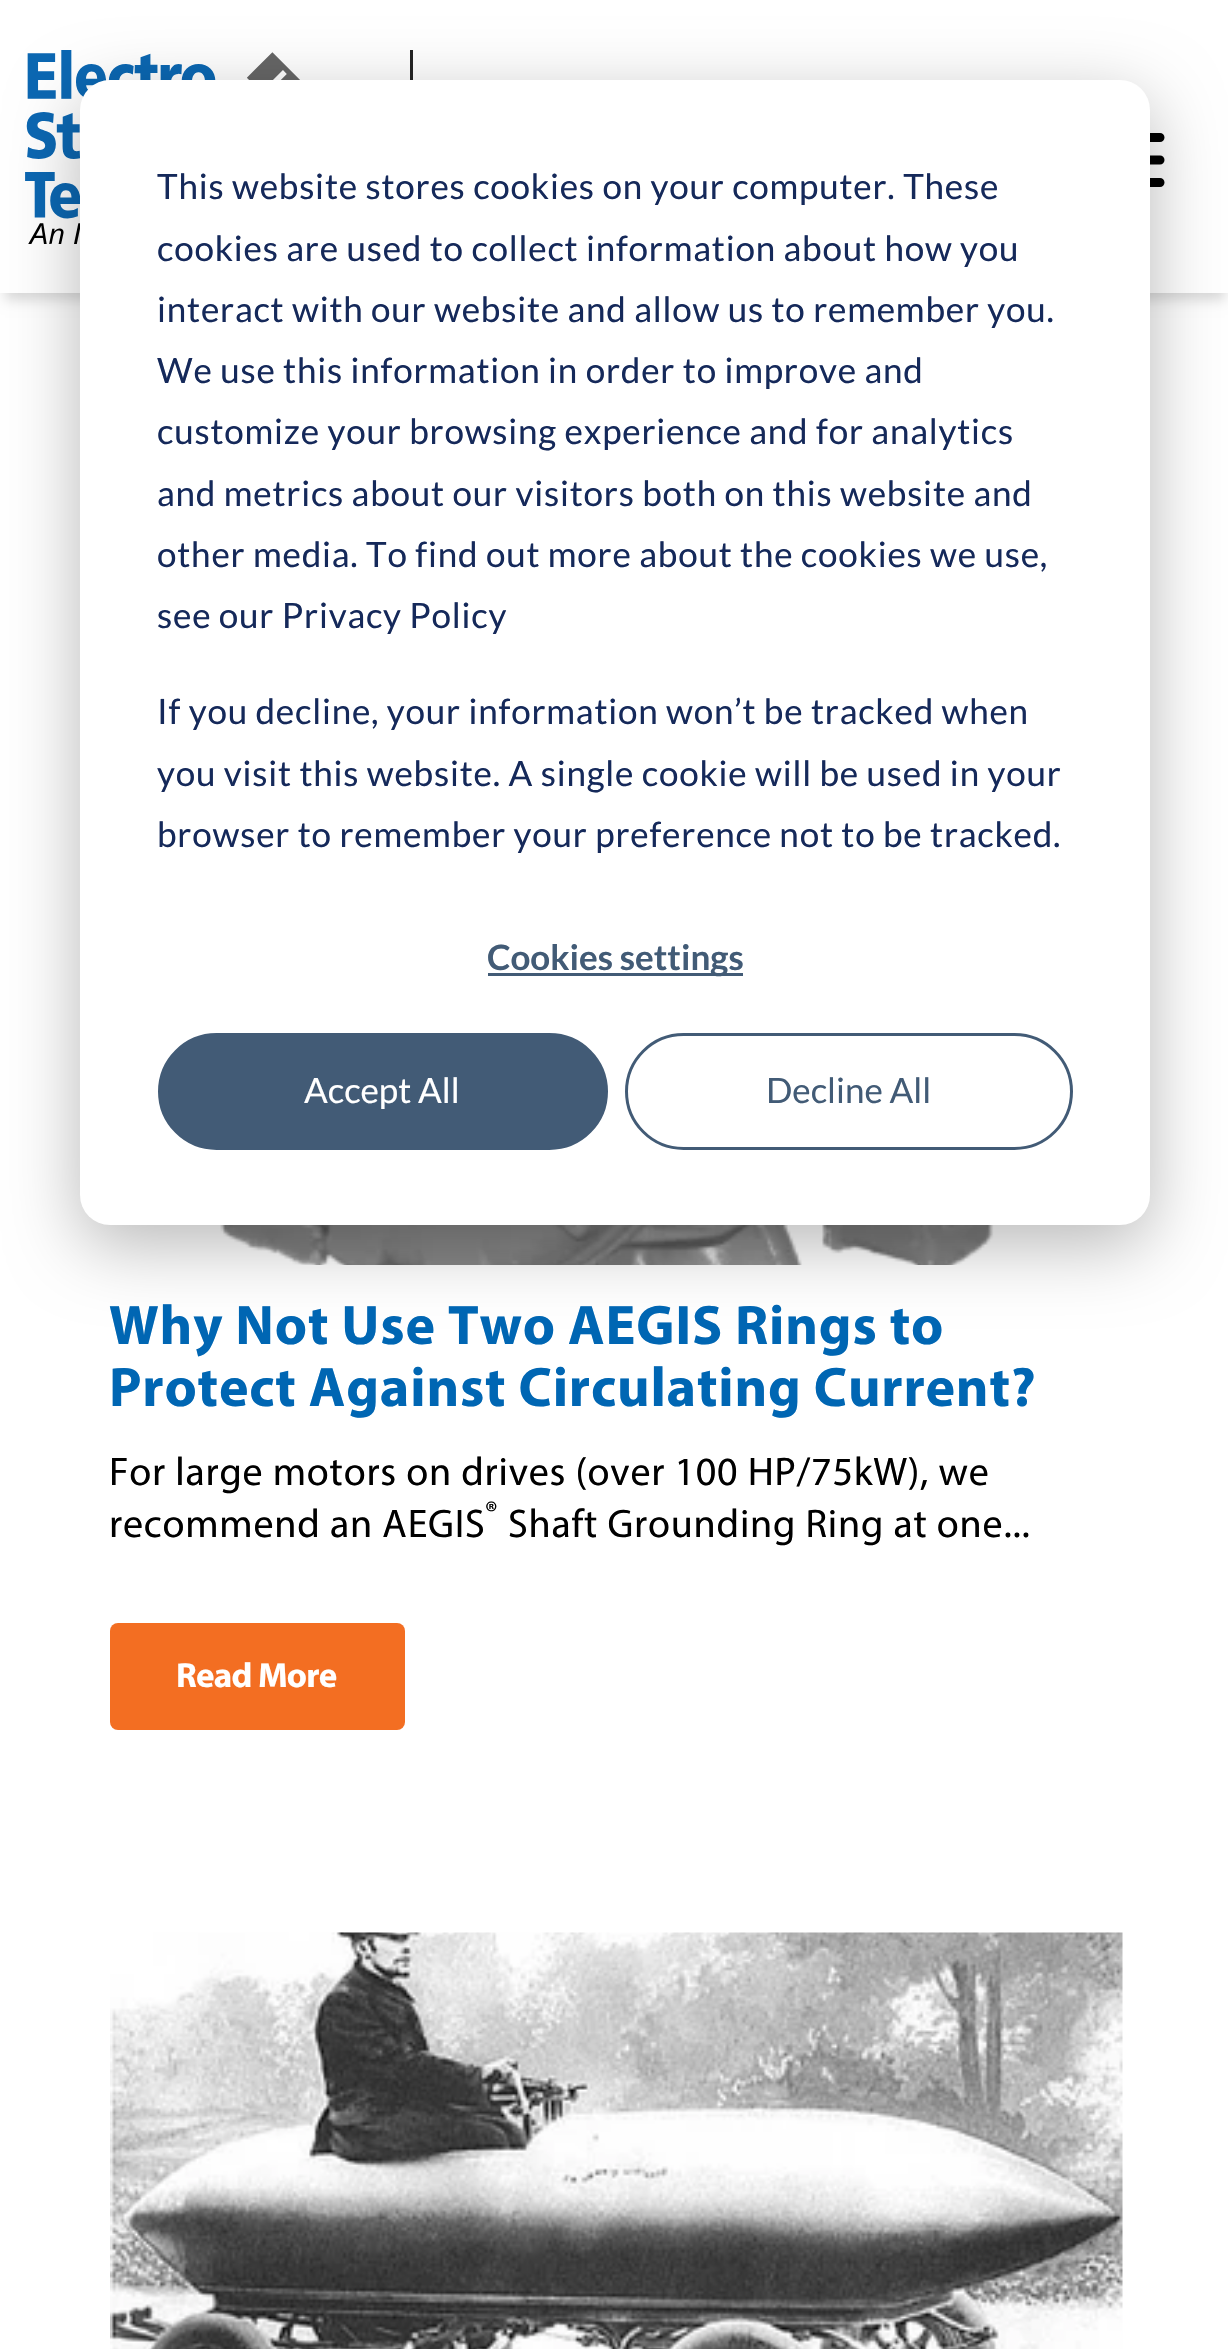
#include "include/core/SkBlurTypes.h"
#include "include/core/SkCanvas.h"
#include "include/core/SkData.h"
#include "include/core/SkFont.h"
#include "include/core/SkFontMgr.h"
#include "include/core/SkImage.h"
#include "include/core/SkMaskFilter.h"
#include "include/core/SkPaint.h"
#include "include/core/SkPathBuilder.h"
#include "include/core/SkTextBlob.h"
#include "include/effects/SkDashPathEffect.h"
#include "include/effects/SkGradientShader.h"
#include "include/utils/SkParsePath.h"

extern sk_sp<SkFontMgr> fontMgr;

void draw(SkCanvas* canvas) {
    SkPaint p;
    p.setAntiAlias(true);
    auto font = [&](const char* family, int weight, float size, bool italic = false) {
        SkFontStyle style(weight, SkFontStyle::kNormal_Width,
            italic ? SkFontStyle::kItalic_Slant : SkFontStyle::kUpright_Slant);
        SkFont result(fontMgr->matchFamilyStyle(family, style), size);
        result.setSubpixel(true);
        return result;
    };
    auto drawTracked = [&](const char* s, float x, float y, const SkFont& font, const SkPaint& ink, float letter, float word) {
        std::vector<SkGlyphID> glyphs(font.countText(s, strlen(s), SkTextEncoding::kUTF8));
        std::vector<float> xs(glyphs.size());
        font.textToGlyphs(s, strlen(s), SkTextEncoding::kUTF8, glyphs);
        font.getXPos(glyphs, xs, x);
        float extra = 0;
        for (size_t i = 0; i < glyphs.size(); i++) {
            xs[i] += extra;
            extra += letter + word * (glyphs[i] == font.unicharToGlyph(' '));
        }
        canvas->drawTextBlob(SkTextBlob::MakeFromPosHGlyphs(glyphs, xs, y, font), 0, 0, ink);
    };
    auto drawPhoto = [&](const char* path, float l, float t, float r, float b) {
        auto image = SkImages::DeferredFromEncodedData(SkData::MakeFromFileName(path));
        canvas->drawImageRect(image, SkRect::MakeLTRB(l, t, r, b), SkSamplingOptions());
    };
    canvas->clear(0xFFFFFFFF);
    canvas->save();
    canvas->clipPath(SkPathBuilder(SkPathFillType::kEvenOdd).moveTo(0, 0).lineTo(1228, 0).lineTo(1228, 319).lineTo(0, 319).close().moveTo(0, 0).lineTo(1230, 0).lineTo(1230, 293).lineTo(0, 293).close().detach(), true);
    p.setColor(0x26000000);
    p.setMaskFilter(SkMaskFilter::MakeBlur(kNormal_SkBlurStyle, 6));
    canvas->drawRect(SkRect::MakeLTRB(5, 18, 1225, 300), p);
    p.setMaskFilter(nullptr);
    canvas->restore();
    p.setColor(0xFF232323);
    canvas->drawRect(SkRect::MakeLTRB(410, 50, 413, 80), p);
    drawPhoto("media/1.png", 25, 50, 300, 244);
    p.setStyle(SkPaint::kStroke_Style);
    p.setStrokeWidth(9);
    p.setStrokeCap(SkPaint::kRound_Cap);
    p.setStrokeJoin(SkPaint::kRound_Join);
    p.setColor(0xFF000000);
    canvas->drawPath(SkPathBuilder().moveTo(1160, 137.5f).lineTo(1128.5f, 137.5f).moveTo(1160, 160).lineTo(1128.5f, 160).moveTo(1160, 182.5f).lineTo(1128.5f, 182.5f).detach(), p);
    drawPhoto("media/2.png", 220, 1225, 994, 1265);
    p.setStyle(SkPaint::kFill_Style);
    p.setColor(0x47000000);
    p.setMaskFilter(SkMaskFilter::MakeBlur(kNormal_SkBlurStyle, 35));
    canvas->drawRoundRect(SkRect::MakeLTRB(80, 100, 1150, 1245), 30, 30, p);
    p.setMaskFilter(nullptr);
    p.setColor(0xFFFFFFFF);
    canvas->drawRoundRect(SkRect::MakeLTRB(80, 80, 1150, 1225), 30, 30, p);
    auto font1 = font("Lato", 400, 35);
    p.setColor(0xFF15295A);
    {
        const struct { const char* s; float x, y; } items[] = {
            {"This website stores cookies on your computer. These", 157, 199},
            {"cookies are used to collect information about how you", 157, 261},
            {"interact with our website and allow us to remember you.", 157, 322},
            {"We use this information in order to improve and", 157, 383},
            {"customize your browsing experience and for analytics", 157, 444},
            {"and metrics about our visitors both on this website and", 157, 506},
            {"other media. To find out more about the cookies we use,", 157, 567},
            {"see our Privacy Policy", 157, 628},
            {"If you decline, your information won’t be tracked when", 157, 724},
            {"you visit this website. A single cookie will be used in your", 157, 786},
            {"browser to remember your preference not to be tracked.", 157, 847},
        };
        for (auto [s, x, y] : items) {
            drawTracked(s, x, y, font1, p, 0.8f, 0);
        }
    }
    p.setColor(0xFF425B76);
    canvas->drawRect(SkRect::MakeLTRB(488, 973, 743, 976), p);
    auto font2 = font("Lato", 700, 35);
    canvas->drawString("Cookies settings", 487, 970, font2, p);
    canvas->drawRoundRect(SkRect::MakeLTRB(159.5f, 1034.5f, 606.5f, 1148.5f), 57, 57, p);
    p.setStyle(SkPaint::kStroke_Style);
    p.setStrokeWidth(3);
    p.setStrokeCap(SkPaint::kButt_Cap);
    p.setStrokeJoin(SkPaint::kMiter_Join);
    canvas->drawRoundRect(SkRect::MakeLTRB(159.5f, 1034.5f, 606.5f, 1148.5f), 57, 57, p);
    p.setStyle(SkPaint::kFill_Style);
    p.setColor(0xFFFFFFFF);
    canvas->drawString("Accept All", 304, 1103, font1, p);
    p.setStyle(SkPaint::kStroke_Style);
    p.setColor(0xFF425B76);
    canvas->drawRoundRect(SkRect::MakeLTRB(626.5f, 1034.5f, 1071.5f, 1148.5f), 57, 57, p);
    p.setStyle(SkPaint::kFill_Style);
    canvas->drawString("Decline All", 766, 1103, font1, p);
    auto font3 = font("Myriad", 700, 56);
    p.setColor(0xFF0066B3);
    drawTracked("Why Not Use Two AEGIS Rings to", 109, 1344, font3, p, 0.8f, 0);
    drawTracked("Protect Against Circulating Current?", 109, 1406, font3, p, 0.8f, 0);
    auto font4 = font("Myriad", 400, 40);
    p.setColor(0xFF000000);
    drawTracked("For large motors on drives (over 100 HP/75kW), we", 109, 1485, font4, p, 0.8f, 0);
    auto font5 = font("Myriad", 400, 30);
    drawTracked("®", 485, 1522, font5, p, 0.8f, 0);
    drawTracked("recommend an AEGIS", 109, 1537, font4, p, 0.8f, 0);
    drawTracked("Shaft Grounding Ring at one...", 508, 1537, font4, p, 0.8f, 0);
    p.setColor(0xFFF36E22);
    canvas->drawRoundRect(SkRect::MakeLTRB(110, 1623, 405, 1730), 8, 8, p);
    auto font6 = font("Myriad", 700, 35);
    p.setColor(0xFFFFFFFF);
    drawTracked("Read More", 176, 1687, font6, p, -0.75f, 0);
    drawPhoto("media/3.png", 110, 1932, 1123, 2349);
}
